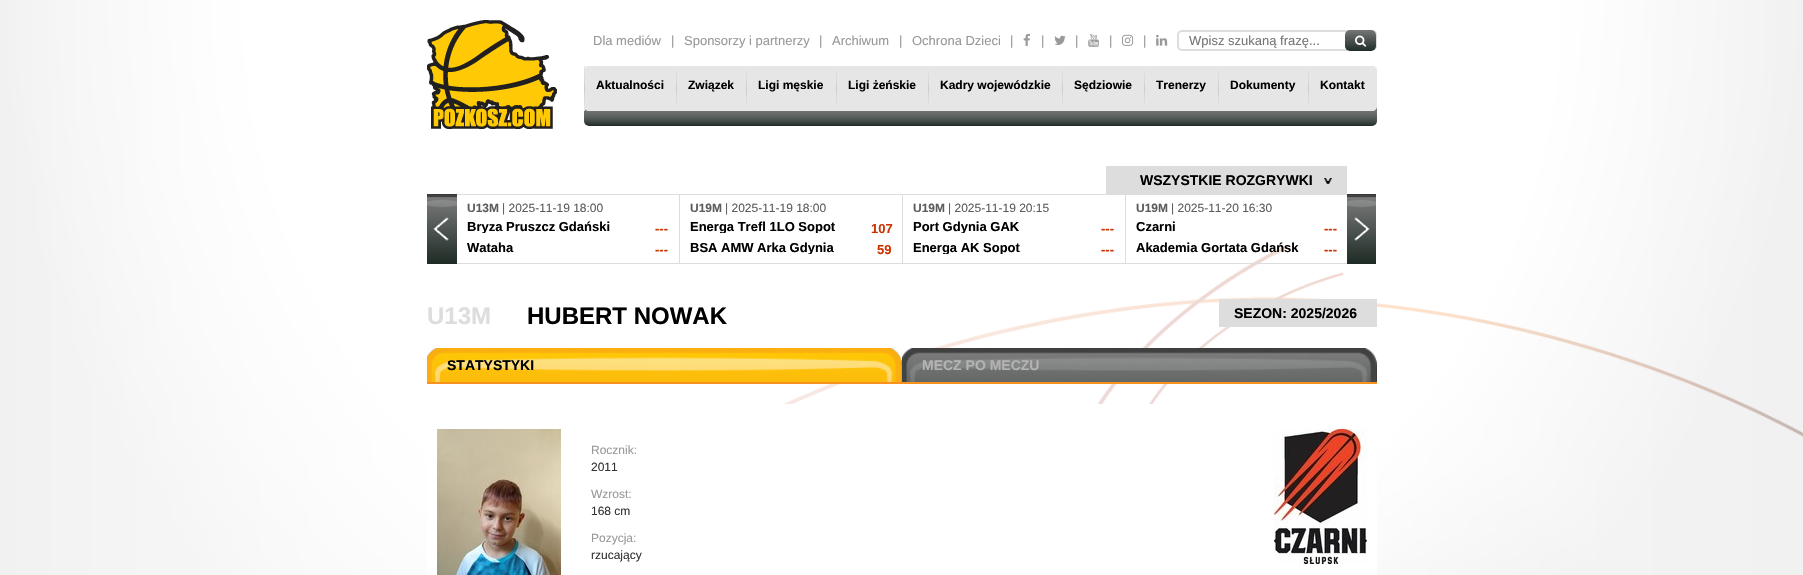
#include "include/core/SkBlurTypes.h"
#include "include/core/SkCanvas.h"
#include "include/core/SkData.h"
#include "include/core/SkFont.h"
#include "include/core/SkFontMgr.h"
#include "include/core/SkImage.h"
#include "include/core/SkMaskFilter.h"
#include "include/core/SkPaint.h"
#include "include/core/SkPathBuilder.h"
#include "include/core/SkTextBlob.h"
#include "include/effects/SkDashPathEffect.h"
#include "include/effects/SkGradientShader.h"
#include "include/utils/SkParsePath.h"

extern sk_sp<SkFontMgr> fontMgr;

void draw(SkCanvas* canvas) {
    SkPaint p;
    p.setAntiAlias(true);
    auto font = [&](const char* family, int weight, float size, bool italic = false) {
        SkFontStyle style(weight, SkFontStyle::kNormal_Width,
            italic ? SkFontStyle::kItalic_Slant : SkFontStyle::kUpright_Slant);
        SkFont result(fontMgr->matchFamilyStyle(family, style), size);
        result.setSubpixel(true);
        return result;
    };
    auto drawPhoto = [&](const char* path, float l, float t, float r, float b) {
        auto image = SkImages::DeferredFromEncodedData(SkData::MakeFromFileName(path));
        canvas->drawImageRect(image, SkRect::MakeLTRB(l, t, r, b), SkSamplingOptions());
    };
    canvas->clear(0xFFFFFFFF);
    drawPhoto("media/1.png", 0, 0, 1803, 575);
    drawPhoto("media/2.png", 427, 20, 557, 129);
    auto font1 = font("Liberation Sans", 400, 13);
    p.setColor(0xFF989898);
    {
        const struct { const char* s; float x, y; } items[] = {
            {"Dla mediów", 593, 45},
            {"|", 671, 45},
            {"Sponsorzy i partnerzy", 684, 45},
            {"|", 819, 45},
            {"Archiwum", 832, 45},
            {"|", 899, 45},
            {"Ochrona Dzieci", 912, 45},
            {"|", 1010, 45},
        };
        for (auto [s, x, y] : items) {
            canvas->drawString(s, x, y, font1, p);
        }
    }
    drawPhoto("media/3.png", 1023, 33, 1030, 46);
    canvas->drawString("|", 1041, 45, font1, p);
    drawPhoto("media/4.png", 1054, 35, 1066, 45);
    canvas->drawString("|", 1075, 45, font1, p);
    drawPhoto("media/5.png", 1088, 33, 1099, 47);
    canvas->drawString("|", 1109, 45, font1, p);
    drawPhoto("media/6.png", 1122, 34, 1134, 46);
    canvas->drawString("|", 1143, 45, font1, p);
    drawPhoto("media/7.png", 1156, 35, 1168, 46);
    p.setStyle(SkPaint::kStroke_Style);
    p.setStrokeWidth(2);
    p.setColor(0xFFDDDDDD);
    canvas->drawRoundRect(SkRect::MakeLTRB(1178, 31, 1376, 50), 4, 4, p);
    p.setStyle(SkPaint::kFill_Style);
    p.setColor(0xFF757575);
    canvas->drawString("Wpisz szukaną frazę...", 1189, 45, font1, p);
    {
        const SkColor colors[] = {0xFF757777, 0xFF202D27};
        const float stops[] = {0, 1};
        const SkPoint ends[] = {{1361, 30}, {1361, 51}};
        p.setShader(SkGradientShader::MakeLinear(ends, colors, stops, 2, SkTileMode::kClamp));
        p.setAlpha(255);
    }
    canvas->drawRoundRect(SkRect::MakeLTRB(1345, 30, 1376, 51), 5, 5, p);
    drawPhoto("media/8.png", 1355, 35, 1367, 47);
    drawPhoto("media/9.png", 584, 66, 1377, 126);
    p.setShader(nullptr);
    p.setColor(0xFFE6E6E6);
    canvas->drawPath(SkPathBuilder().moveTo(589, 66).lineTo(676, 66).lineTo(676, 111).lineTo(589, 111).cubicTo(586, 111, 584, 109, 584, 106).lineTo(584, 71).cubicTo(584, 68, 586, 66, 589, 66).close().detach(), p);
    drawPhoto("media/10.png", 584, 66, 585, 111);
    auto font2 = font("Liberation Sans", 700, 12);
    p.setColor(0xFF000000);
    canvas->drawString("Aktualności", 596, 89, font2, p);
    p.setColor(0xFFE6E6E6);
    canvas->drawRect(SkRect::MakeLTRB(676, 107, 1308, 111), p);
    drawPhoto("media/11.png", 676, 71, 677, 106);
    p.setColor(0xFF000000);
    canvas->drawString("Związek", 688, 89, font2, p);
    drawPhoto("media/11.png", 746, 71, 747, 106);
    canvas->drawString("Ligi męskie", 758, 89, font2, p);
    drawPhoto("media/11.png", 836, 71, 837, 106);
    canvas->drawString("Ligi żeńskie", 848, 89, font2, p);
    drawPhoto("media/11.png", 928, 71, 929, 106);
    canvas->drawString("Kadry wojewódzkie", 940, 89, font2, p);
    drawPhoto("media/11.png", 1062, 71, 1063, 106);
    canvas->drawString("Sędziowie", 1074, 89, font2, p);
    drawPhoto("media/11.png", 1144, 71, 1145, 106);
    canvas->drawString("Trenerzy", 1156, 89, font2, p);
    drawPhoto("media/11.png", 1218, 71, 1219, 106);
    canvas->drawString("Dokumenty", 1230, 89, font2, p);
    p.setColor(0xFFE6E6E6);
    canvas->drawPath(SkPathBuilder().moveTo(1308, 66).lineTo(1372, 66).cubicTo(1375, 66, 1377, 68, 1377, 71).lineTo(1377, 106).cubicTo(1377, 109, 1375, 111, 1372, 111).lineTo(1308, 111).close().detach(), p);
    drawPhoto("media/11.png", 1308, 71, 1309, 106);
    p.setColor(0xFF000000);
    canvas->drawString("Kontakt", 1320, 89, font2, p);
    p.setColor(0xFFDDDDDD);
    canvas->drawRect(SkRect::MakeLTRB(1106, 166, 1347, 194), p);
    auto font3 = font("Liberation Sans", 700, 14);
    p.setColor(0xFF000000);
    canvas->drawString("WSZYSTKIE ROZGRYWKI", 1140, 185, font3, p);
    drawPhoto("media/12.png", 1324, 178, 1332, 184);
    drawPhoto("media/13.png", 427, 194, 457, 264);
    {
        const struct { float l, t, r, b; SkColor color; } items[] = {
            {457, 194, 1347, 195, 0xFFDDDDDD},
            {679, 194, 680, 264, 0xFFDDDDDD},
            {457, 263, 680, 264, 0xFFDDDDDD},
        };
        for (auto [l, t, r, b, color] : items) {
            p.setColor(color);
            canvas->drawRect(SkRect::MakeLTRB(l, t, r, b), p);
        }
    }
    p.setColor(0xFF5C5C5C);
    canvas->drawString("U13M", 467, 212, font2, p);
    auto font4 = font("Liberation Sans", 400, 12);
    canvas->drawString("| 2025-11-19 18:00", 502, 212, font4, p);
    canvas->save();
    canvas->clipRect(SkRect::MakeLTRB(467, 220, 645, 233));
    auto font5 = font("Liberation Sans", 700, 13);
    p.setColor(0xFF000000);
    canvas->drawString("Bryza Pruszcz Gdański", 467, 231, font5, p);
    canvas->restore();
    p.setColor(0xFFCC3300);
    canvas->drawString("---", 655, 233, font5, p);
    p.setColor(0xFF000000);
    canvas->drawString("Wataha", 467, 252, font5, p);
    p.setColor(0xFFCC3300);
    canvas->drawString("---", 655, 254, font5, p);
    p.setColor(0xFFDDDDDD);
    canvas->drawRect(SkRect::MakeLTRB(902, 194, 903, 264), p);
    canvas->drawRect(SkRect::MakeLTRB(680, 263, 903, 264), p);
    p.setColor(0xFF5C5C5C);
    canvas->drawString("U19M", 690, 212, font2, p);
    canvas->drawString("| 2025-11-19 18:00", 725, 212, font4, p);
    canvas->save();
    canvas->clipRect(SkRect::MakeLTRB(690, 220, 868, 233));
    p.setColor(0xFF000000);
    canvas->drawString("Energa Trefl 1LO Sopot", 690, 231, font5, p);
    canvas->restore();
    p.setColor(0xFFCC3300);
    canvas->drawString("107", 871, 233, font5, p);
    p.setColor(0xFF000000);
    canvas->drawString("BSA", 690, 252, font5, p);
    canvas->save();
    canvas->clipRect(SkRect::MakeLTRB(690, 241, 868, 254));
    canvas->drawString("AMW Arka Gdynia", 721, 252, font5, p);
    canvas->restore();
    p.setColor(0xFFCC3300);
    canvas->drawString("59", 877, 254, font5, p);
    p.setColor(0xFFDDDDDD);
    canvas->drawRect(SkRect::MakeLTRB(1125, 194, 1126, 264), p);
    canvas->drawRect(SkRect::MakeLTRB(903, 263, 1347, 264), p);
    p.setColor(0xFF5C5C5C);
    canvas->drawString("U19M", 913, 212, font2, p);
    canvas->drawString("| 2025-11-19 20:15", 948, 212, font4, p);
    canvas->save();
    canvas->clipRect(SkRect::MakeLTRB(913, 220, 1091, 233));
    p.setColor(0xFF000000);
    canvas->drawString("Port Gdynia GAK", 913, 231, font5, p);
    canvas->restore();
    p.setColor(0xFFCC3300);
    canvas->drawString("---", 1101, 233, font5, p);
    canvas->save();
    canvas->clipRect(SkRect::MakeLTRB(913, 241, 1091, 254));
    p.setColor(0xFF000000);
    canvas->drawString("Energa AK Sopot", 913, 252, font5, p);
    canvas->restore();
    p.setColor(0xFFCC3300);
    canvas->drawString("---", 1101, 254, font5, p);
    p.setColor(0xFF5C5C5C);
    canvas->drawString("U19M", 1136, 212, font2, p);
    canvas->drawString("| 2025-11-20 16:30", 1171, 212, font4, p);
    p.setColor(0xFF000000);
    canvas->drawString("Czarni", 1136, 231, font5, p);
    p.setColor(0xFFCC3300);
    canvas->drawString("---", 1324, 233, font5, p);
    p.setColor(0xFF000000);
    canvas->drawString("Akademia Gortata Gdańsk", 1136, 252, font5, p);
    p.setColor(0xFFCC3300);
    canvas->drawString("---", 1324, 254, font5, p);
    drawPhoto("media/14.png", 1347, 194, 1376, 264);
    auto font6 = font("Liberation Sans", 700, 24);
    p.setColor(0xFFDDDDDD);
    canvas->drawString("U13M", 427, 324, font6, p);
    p.setColor(0xFF000000);
    canvas->drawString("HUBERT NOWAK", 527, 324, font6, p);
    p.setColor(0xFFDDDDDD);
    canvas->drawRect(SkRect::MakeLTRB(1219, 299, 1377, 327), p);
    p.setColor(0xFF000000);
    canvas->drawString("SEZON: 2025/2026", 1234, 318, font3, p);
    p.setColor(0xFFF7921E);
    canvas->drawRect(SkRect::MakeLTRB(427, 382, 1377, 384), p);
    drawPhoto("media/15.png", 427, 348, 902, 382);
    p.setColor(0xFF000000);
    canvas->drawString("STATYSTYKI", 447, 370, font3, p);
    drawPhoto("media/16.png", 902, 348, 1377, 382);
    p.setColor(0xFFB3B3B3);
    canvas->drawString("MECZ PO MECZU", 922, 370, font3, p);
    p.setColor(0xFFFFFFFF);
    canvas->drawRect(SkRect::MakeLTRB(427, 404, 1377, 575), p);
    drawPhoto("media/17.png", 437, 429, 561, 575);
    p.setColor(0xFF989898);
    canvas->drawString("Rocznik:", 591, 454, font4, p);
    p.setColor(0xFF333333);
    canvas->drawString("2011", 591, 471, font4, p);
    p.setColor(0xFF989898);
    canvas->drawString("Wzrost:", 591, 498, font4, p);
    p.setColor(0xFF333333);
    canvas->drawString("168 cm", 591, 515, font4, p);
    p.setColor(0xFF989898);
    canvas->drawString("Pozycja:", 591, 542, font4, p);
    p.setColor(0xFF333333);
    canvas->drawString("rzucający", 591, 559, font4, p);
    drawPhoto("media/18.png", 1274, 429, 1367, 564);
}
